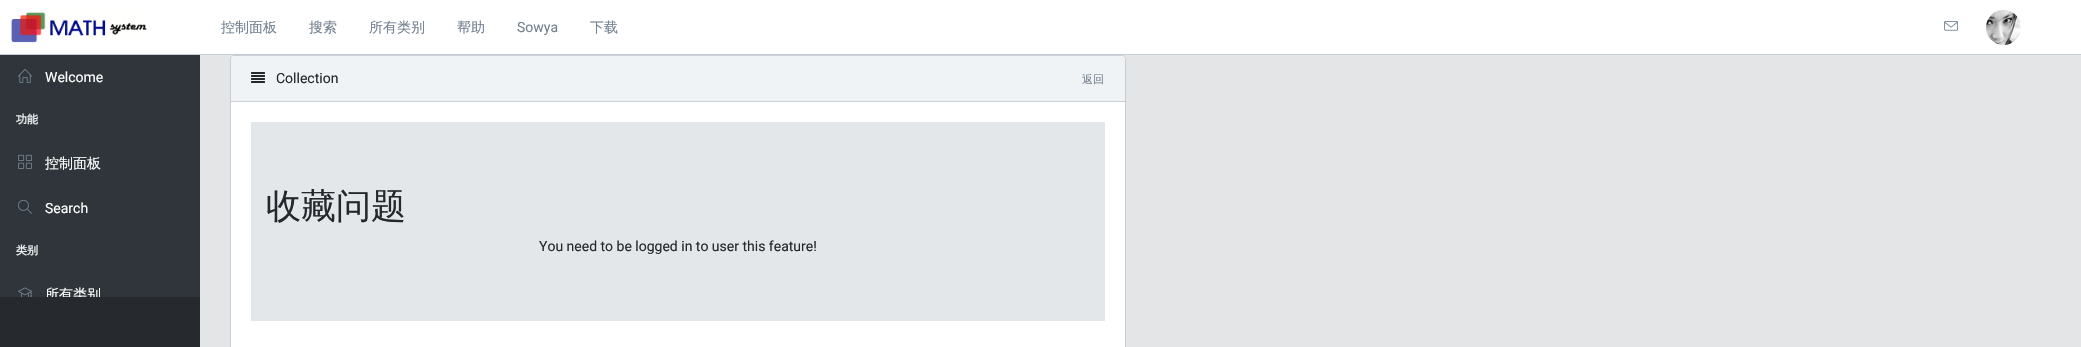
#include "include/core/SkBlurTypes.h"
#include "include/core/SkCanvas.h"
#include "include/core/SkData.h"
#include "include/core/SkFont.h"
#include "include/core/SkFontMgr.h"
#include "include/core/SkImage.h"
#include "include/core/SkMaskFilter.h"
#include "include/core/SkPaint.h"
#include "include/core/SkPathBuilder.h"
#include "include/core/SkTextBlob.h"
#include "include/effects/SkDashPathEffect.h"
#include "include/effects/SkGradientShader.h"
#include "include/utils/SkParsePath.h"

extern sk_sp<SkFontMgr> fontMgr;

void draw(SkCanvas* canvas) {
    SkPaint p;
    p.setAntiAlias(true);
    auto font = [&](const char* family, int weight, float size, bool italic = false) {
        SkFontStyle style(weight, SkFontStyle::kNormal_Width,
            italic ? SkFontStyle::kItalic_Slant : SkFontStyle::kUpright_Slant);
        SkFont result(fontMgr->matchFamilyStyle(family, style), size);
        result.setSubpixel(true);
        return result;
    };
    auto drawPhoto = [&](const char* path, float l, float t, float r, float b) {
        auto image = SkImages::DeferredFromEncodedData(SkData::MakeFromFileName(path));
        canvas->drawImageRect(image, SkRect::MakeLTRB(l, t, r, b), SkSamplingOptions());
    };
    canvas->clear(0xFFE4E5E6);
    p.setColor(0xFFFFFFFF);
    canvas->drawRect(SkRect::MakeLTRB(0, 0, 2081, 54), p);
    p.setColor(0xFFC8CED3);
    canvas->drawRect(SkRect::MakeLTRB(0, 54, 2081, 55), p);
    drawPhoto("media/1.png", 11, 12, 147, 43);
    auto font1 = font("WenQuanYi Zen Hei", 500, 14);
    p.setColor(0xFF73818F);
    {
        const struct { const char* s; float x, y; } items[] = {
            {"控制面板", 221, 32},
            {"搜索", 309, 32},
            {"所有类别", 369, 32},
            {"帮助", 457, 32},
        };
        for (auto [s, x, y] : items) {
            canvas->drawString(s, x, y, font1, p);
        }
    }
    auto font2 = font("Roboto", 400, 14);
    canvas->drawString("Sowya", 517, 32, font2, p);
    canvas->drawString("下载", 590, 32, font1, p);
    drawPhoto("media/2.png", 1944, 21, 1958, 31);
    drawPhoto("media/3.png", 1986, 10, 2021, 45);
    p.setColor(0xFF2F353A);
    canvas->drawRect(SkRect::MakeLTRB(0, 55, 200, 297), p);
    drawPhoto("media/4.png", 18, 69, 32, 83);
    p.setColor(0xFFFFFFFF);
    canvas->drawString("Welcome", 45, 82, font2, p);
    auto font3 = font("WenQuanYi Zen Hei", 700, 11);
    p.setColor(0xFFE4E7EA);
    canvas->drawString("功能", 16, 123, font3, p);
    drawPhoto("media/5.png", 18, 154, 32, 169);
    p.setColor(0xFFFFFFFF);
    canvas->drawString("控制面板", 45, 168, font1, p);
    drawPhoto("media/6.png", 18, 199, 32, 214);
    canvas->drawString("Search", 45, 213, font2, p);
    p.setColor(0xFFE4E7EA);
    canvas->drawString("类别", 16, 254, font3, p);
    drawPhoto("media/7.png", 18, 287, 32, 297);
    p.setColor(0xFFFFFFFF);
    canvas->drawString("所有类别", 45, 299, font1, p);
    p.setColor(0xFF262A2E);
    canvas->drawRect(SkRect::MakeLTRB(0, 297, 200, 347), p);
    p.setColor(0xFFFFFFFF);
    canvas->drawRoundRect(SkRect::MakeLTRB(230.5f, 55.5f, 1125.5f, 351.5f), 3.5f, 3.5f, p);
    p.setStyle(SkPaint::kStroke_Style);
    p.setStrokeWidth(1);
    p.setColor(0xFFC8CED3);
    canvas->drawRoundRect(SkRect::MakeLTRB(230.5f, 55.5f, 1125.5f, 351.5f), 3.5f, 3.5f, p);
    p.setStyle(SkPaint::kFill_Style);
    p.setColor(0xFFF0F3F5);
    canvas->drawPath(SkPathBuilder().moveTo(234, 56).lineTo(1122, 56).cubicTo(1123.5f, 56, 1125, 57.5f, 1125, 59).lineTo(1125, 102).lineTo(231, 102).lineTo(231, 59).cubicTo(231, 57.5f, 232.5f, 56, 234, 56).close().detach(), p);
    p.setColor(0xFFC8CED3);
    canvas->drawRect(SkRect::MakeLTRB(231, 101, 1125, 102), p);
    drawPhoto("media/8.png", 251, 72, 265, 83);
    p.setColor(0xFF23282C);
    canvas->drawString("Collection", 276, 83, font2, p);
    auto font4 = font("WenQuanYi Zen Hei", 500, 11);
    p.setColor(0xFF73818F);
    canvas->drawString("返回", 1082, 83, font4, p);
    p.setColor(0xFFE4E7EA);
    canvas->drawRect(SkRect::MakeLTRB(251, 122, 1105, 321), p);
    auto font5 = font("WenQuanYi Zen Hei", 500, 35);
    p.setColor(0xFF23282C);
    canvas->drawString("收藏问题", 266, 218, font5, p);
    canvas->drawString("You need to be logged in to user this feature!", 539, 251, font2, p);
}
